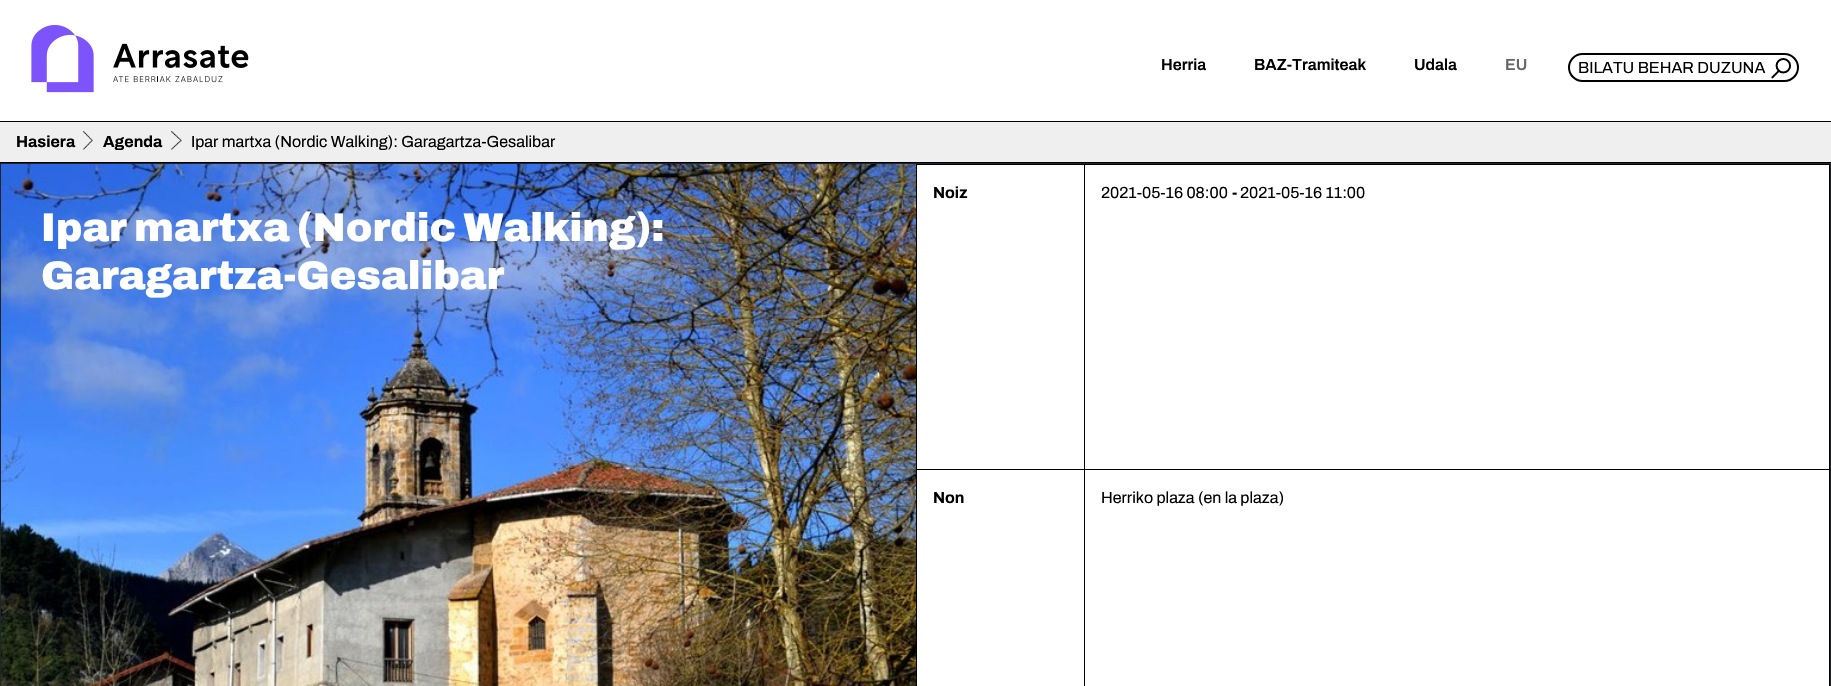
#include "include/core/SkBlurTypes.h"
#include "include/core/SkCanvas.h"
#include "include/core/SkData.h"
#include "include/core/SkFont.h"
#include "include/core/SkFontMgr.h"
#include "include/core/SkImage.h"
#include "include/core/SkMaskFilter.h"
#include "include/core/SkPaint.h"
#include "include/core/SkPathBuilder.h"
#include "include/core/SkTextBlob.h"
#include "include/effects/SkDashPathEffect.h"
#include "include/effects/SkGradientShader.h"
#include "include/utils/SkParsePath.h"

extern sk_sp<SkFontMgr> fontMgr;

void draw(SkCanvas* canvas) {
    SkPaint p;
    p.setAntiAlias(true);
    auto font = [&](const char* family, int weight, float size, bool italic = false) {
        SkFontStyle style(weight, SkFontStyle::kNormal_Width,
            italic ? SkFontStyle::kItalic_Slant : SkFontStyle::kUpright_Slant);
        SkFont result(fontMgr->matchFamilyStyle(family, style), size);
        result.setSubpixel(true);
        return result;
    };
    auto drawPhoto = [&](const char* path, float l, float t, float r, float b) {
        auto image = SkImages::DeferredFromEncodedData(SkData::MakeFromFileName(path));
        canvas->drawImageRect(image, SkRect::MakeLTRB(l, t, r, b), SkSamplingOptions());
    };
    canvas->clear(0xFFFFFFFF);
    drawPhoto("media/1.png", 31, 25, 249, 93);
    auto font1 = font("Archivo", 600, 16);
    p.setColor(0xFF000000);
    {
        const struct { const char* s; float x, y; } items[] = {
            {"Herria", 1161, 70},
            {"BAZ-Tramiteak", 1254, 70},
            {"Udala", 1414, 70},
        };
        for (auto [s, x, y] : items) {
            canvas->drawString(s, x, y, font1, p);
        }
    }
    p.setColor(0xFF666666);
    canvas->drawString("EU", 1505, 70, font1, p);
    drawPhoto("media/2.png", 1771, 58, 1791, 79);
    p.setStyle(SkPaint::kStroke_Style);
    p.setStrokeWidth(2);
    p.setColor(0xFF000000);
    canvas->drawRoundRect(SkRect::MakeLTRB(1569, 54, 1798, 81), 13.5f, 13.5f, p);
    auto font2 = font("Archivo", 400, 16);
    p.setStyle(SkPaint::kFill_Style);
    canvas->drawString("BILATU BEHAR DUZUNA", 1578, 73, font2, p);
    {
        const struct { float l, t, r, b; SkColor color; } items[] = {
            {0, 122, 1831, 162, 0xFFEFEFEF},
            {0, 121, 1831, 122, 0xFF000000},
            {0, 162, 1831, 163, 0xFF000000},
        };
        for (auto [l, t, r, b, color] : items) {
            p.setColor(color);
            canvas->drawRect(SkRect::MakeLTRB(l, t, r, b), p);
        }
    }
    auto font3 = font("Archivo", 700, 16);
    canvas->drawString("Hasiera", 16, 147, font3, p);
    drawPhoto("media/3.png", 83, 131, 93, 150);
    canvas->drawString("Agenda", 103, 147, font3, p);
    drawPhoto("media/4.png", 171, 131, 182, 150);
    canvas->drawString("Ipar martxa (Nordic Walking): Garagartza-Gesalibar", 191, 147, font2, p);
    p.setStyle(SkPaint::kStroke_Style);
    p.setStrokeWidth(1);
    p.setColor(0xFF212529);
    canvas->drawRect(SkRect::MakeLTRB(0.5f, 163.5f, 1830.5f, 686.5f), p);
    drawPhoto("media/5.png", 1, 164, 916, 686);
    auto font4 = font("Archivo", 900, 40);
    p.setStyle(SkPaint::kFill_Style);
    p.setColor(0xFFFFFFFF);
    canvas->drawString("Ipar martxa (Nordic Walking):", 41, 241, font4, p);
    canvas->drawString("Garagartza-Gesalibar", 41, 289, font4, p);
    {
        const struct { float l, t, r, b; SkColor color; } items[] = {
            {1084, 164, 1830, 165, 0xFF000000},
            {1084, 469, 1830, 470, 0xFF000000},
            {1084, 469, 1085, 686, 0xFF000000},
            {916, 469, 1085, 470, 0xFF000000},
            {1084, 164, 1085, 470, 0xFF000000},
            {916, 164, 1085, 165, 0xFF000000},
            {916, 469, 917, 686, 0xFF000000},
            {916, 164, 917, 470, 0xFF000000},
        };
        for (auto [l, t, r, b, color] : items) {
            p.setColor(color);
            canvas->drawRect(SkRect::MakeLTRB(l, t, r, b), p);
        }
    }
    canvas->drawString("Noiz", 933, 198, font3, p);
    canvas->drawRect(SkRect::MakeLTRB(1829, 469, 1830, 686), p);
    canvas->drawRect(SkRect::MakeLTRB(1829, 164, 1830, 470), p);
    canvas->drawString("2021-05-16 08:00", 1101, 198, font2, p);
    canvas->drawString("-", 1232, 198, font3, p);
    canvas->drawString("2021-05-16 11:00", 1240, 198, font2, p);
    canvas->drawString("Non", 933, 503, font3, p);
    canvas->drawString("Herriko plaza (en la plaza)", 1101, 503, font2, p);
}
